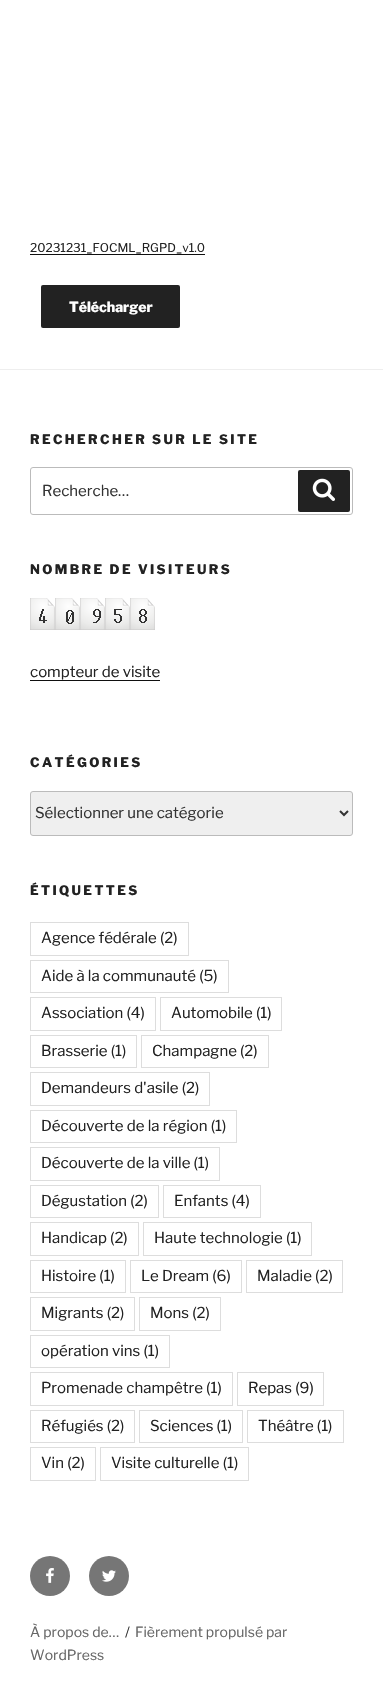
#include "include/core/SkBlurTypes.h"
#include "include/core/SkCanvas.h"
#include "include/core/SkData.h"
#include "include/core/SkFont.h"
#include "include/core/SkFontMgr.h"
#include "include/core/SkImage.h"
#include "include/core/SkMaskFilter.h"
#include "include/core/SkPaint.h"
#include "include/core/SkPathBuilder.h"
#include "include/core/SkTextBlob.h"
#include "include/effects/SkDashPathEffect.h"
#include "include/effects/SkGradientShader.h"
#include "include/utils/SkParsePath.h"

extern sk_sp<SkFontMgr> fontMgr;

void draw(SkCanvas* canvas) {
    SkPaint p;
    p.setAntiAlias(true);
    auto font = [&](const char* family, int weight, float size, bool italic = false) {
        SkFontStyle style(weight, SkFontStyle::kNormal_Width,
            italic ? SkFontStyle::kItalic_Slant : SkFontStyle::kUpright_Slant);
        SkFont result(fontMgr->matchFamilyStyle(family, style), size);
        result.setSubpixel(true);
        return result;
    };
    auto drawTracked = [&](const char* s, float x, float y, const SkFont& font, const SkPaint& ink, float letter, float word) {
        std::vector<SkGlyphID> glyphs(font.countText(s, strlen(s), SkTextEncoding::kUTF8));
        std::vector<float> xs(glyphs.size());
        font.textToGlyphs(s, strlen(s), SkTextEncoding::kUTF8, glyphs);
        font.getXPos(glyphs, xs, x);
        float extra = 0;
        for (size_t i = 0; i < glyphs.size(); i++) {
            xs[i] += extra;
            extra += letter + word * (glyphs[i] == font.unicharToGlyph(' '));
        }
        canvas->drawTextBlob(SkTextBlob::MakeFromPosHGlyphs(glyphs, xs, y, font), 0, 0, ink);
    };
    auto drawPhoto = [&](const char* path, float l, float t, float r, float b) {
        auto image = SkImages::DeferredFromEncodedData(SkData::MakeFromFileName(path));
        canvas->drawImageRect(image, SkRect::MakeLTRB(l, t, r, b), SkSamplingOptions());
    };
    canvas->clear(0xFFFFFFFF);
    auto font1 = font("Libre Franklin", 100, 12);
    p.setColor(0xFF222222);
    canvas->drawString("20231231_FOCML_RGPD_v1.0", 30, 252, font1, p);
    p.setColor(0xFF0F0F0F);
    canvas->drawRect(SkRect::MakeLTRB(30, 254, 205, 255), p);
    p.setColor(0xFF222222);
    canvas->drawRoundRect(SkRect::MakeLTRB(41, 285, 180, 328), 2, 2, p);
    auto font2 = font("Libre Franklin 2", 100, 14);
    p.setColor(0xFFFFFFFF);
    canvas->drawString("Télécharger", 69, 312, font2, p);
    p.setColor(0xFFEEEEEE);
    canvas->drawRect(SkRect::MakeLTRB(0, 369, 383, 370), p);
    auto font3 = font("Libre Franklin 2", 100, 13);
    p.setColor(0xFF222222);
    drawTracked("RECHERCHER SUR LE SITE", 30, 444, font3, p, 2.4f, 0);
    p.setStyle(SkPaint::kStroke_Style);
    p.setStrokeWidth(1);
    p.setColor(0xFFBBBBBB);
    canvas->drawRoundRect(SkRect::MakeLTRB(30.5f, 467.5f, 352.5f, 514.5f), 2.5f, 2.5f, p);
    auto font4 = font("Libre Franklin", 100, 15);
    p.setStyle(SkPaint::kFill_Style);
    p.setColor(0xFF333333);
    canvas->drawString("Recherche…", 42, 496, font4, p);
    p.setColor(0xFF222222);
    canvas->drawRoundRect(SkRect::MakeLTRB(298, 470, 350, 512), 2, 2, p);
    drawPhoto("media/1.png", 312, 478, 335, 501);
    drawTracked("NOMBRE DE VISITEURS", 30, 574, font3, p, 2.4f, 0);
    drawPhoto("media/2.png", 30, 598, 155, 630);
    canvas->drawString("compteur de visite", 30, 677, font4, p);
    p.setColor(0xFF0F0F0F);
    canvas->drawRect(SkRect::MakeLTRB(30, 680, 160, 681), p);
    p.setColor(0xFF222222);
    drawTracked("CATÉGORIES", 30, 767, font3, p, 2.4f, 0);
    p.setColor(0xFFEFEFEF);
    canvas->drawRoundRect(SkRect::MakeLTRB(30.5f, 791.5f, 352.5f, 835.5f), 2.5f, 2.5f, p);
    p.setStyle(SkPaint::kStroke_Style);
    p.setColor(0xFFBBBBBB);
    canvas->drawRoundRect(SkRect::MakeLTRB(30.5f, 791.5f, 352.5f, 835.5f), 2.5f, 2.5f, p);
    p.setStrokeWidth(2);
    p.setColor(0xFF333333);
    canvas->drawPath(SkPathBuilder().moveTo(340, 811).lineTo(344, 815).lineTo(348, 811).detach(), p);
    p.setStyle(SkPaint::kFill_Style);
    canvas->drawString("Sélectionner une catégorie", 35, 818, font4, p);
    p.setColor(0xFF222222);
    drawTracked("ÉTIQUETTES", 30, 895, font3, p, 2.4f, 0);
    p.setStyle(SkPaint::kStroke_Style);
    p.setStrokeWidth(1);
    p.setColor(0xFFDDDDDD);
    canvas->drawRect(SkRect::MakeLTRB(30.5f, 922.5f, 188.5f, 955.5f), p);
    p.setStyle(SkPaint::kFill_Style);
    p.setColor(0xFF222222);
    canvas->drawString("Agence fédérale (2)", 41, 943, font4, p);
    p.setStyle(SkPaint::kStroke_Style);
    p.setColor(0xFFDDDDDD);
    canvas->drawRect(SkRect::MakeLTRB(30.5f, 960.5f, 228.5f, 992.5f), p);
    p.setStyle(SkPaint::kFill_Style);
    p.setColor(0xFF222222);
    canvas->drawString("Aide à la communauté (5)", 41, 981, font4, p);
    p.setStyle(SkPaint::kStroke_Style);
    p.setColor(0xFFDDDDDD);
    canvas->drawRect(SkRect::MakeLTRB(30.5f, 997.5f, 155.5f, 1030.5f), p);
    p.setStyle(SkPaint::kFill_Style);
    p.setColor(0xFF222222);
    canvas->drawString("Association (4)", 41, 1018, font4, p);
    p.setStyle(SkPaint::kStroke_Style);
    p.setColor(0xFFDDDDDD);
    canvas->drawRect(SkRect::MakeLTRB(160.5f, 997.5f, 281.5f, 1030.5f), p);
    p.setStyle(SkPaint::kFill_Style);
    p.setColor(0xFF222222);
    canvas->drawString("Automobile (1)", 171, 1018, font4, p);
    p.setStyle(SkPaint::kStroke_Style);
    p.setColor(0xFFDDDDDD);
    canvas->drawRect(SkRect::MakeLTRB(30.5f, 1035.5f, 136.5f, 1067.5f), p);
    p.setStyle(SkPaint::kFill_Style);
    p.setColor(0xFF222222);
    canvas->drawString("Brasserie (1)", 41, 1056, font4, p);
    p.setStyle(SkPaint::kStroke_Style);
    p.setColor(0xFFDDDDDD);
    canvas->drawRect(SkRect::MakeLTRB(141.5f, 1035.5f, 268.5f, 1067.5f), p);
    p.setStyle(SkPaint::kFill_Style);
    p.setColor(0xFF222222);
    canvas->drawString("Champagne (2)", 152, 1056, font4, p);
    p.setStyle(SkPaint::kStroke_Style);
    p.setColor(0xFFDDDDDD);
    canvas->drawRect(SkRect::MakeLTRB(30.5f, 1072.5f, 209.5f, 1105.5f), p);
    p.setStyle(SkPaint::kFill_Style);
    p.setColor(0xFF222222);
    canvas->drawString("Demandeurs d'asile (2)", 41, 1093, font4, p);
    p.setStyle(SkPaint::kStroke_Style);
    p.setColor(0xFFDDDDDD);
    canvas->drawRect(SkRect::MakeLTRB(30.5f, 1110.5f, 236.5f, 1142.5f), p);
    p.setStyle(SkPaint::kFill_Style);
    p.setColor(0xFF222222);
    canvas->drawString("Découverte de la région (1)", 41, 1131, font4, p);
    p.setStyle(SkPaint::kStroke_Style);
    p.setColor(0xFFDDDDDD);
    canvas->drawRect(SkRect::MakeLTRB(30.5f, 1147.5f, 219.5f, 1180.5f), p);
    p.setStyle(SkPaint::kFill_Style);
    p.setColor(0xFF222222);
    canvas->drawString("Découverte de la ville (1)", 41, 1168, font4, p);
    p.setStyle(SkPaint::kStroke_Style);
    p.setColor(0xFFDDDDDD);
    canvas->drawRect(SkRect::MakeLTRB(30.5f, 1185.5f, 158.5f, 1217.5f), p);
    p.setStyle(SkPaint::kFill_Style);
    p.setColor(0xFF222222);
    canvas->drawString("Dégustation (2)", 41, 1206, font4, p);
    p.setStyle(SkPaint::kStroke_Style);
    p.setColor(0xFFDDDDDD);
    canvas->drawRect(SkRect::MakeLTRB(163.5f, 1185.5f, 260.5f, 1217.5f), p);
    p.setStyle(SkPaint::kFill_Style);
    p.setColor(0xFF222222);
    canvas->drawString("Enfants (4)", 174, 1206, font4, p);
    p.setStyle(SkPaint::kStroke_Style);
    p.setColor(0xFFDDDDDD);
    canvas->drawRect(SkRect::MakeLTRB(30.5f, 1222.5f, 138.5f, 1255.5f), p);
    p.setStyle(SkPaint::kFill_Style);
    p.setColor(0xFF222222);
    canvas->drawString("Handicap (2)", 41, 1243, font4, p);
    p.setStyle(SkPaint::kStroke_Style);
    p.setColor(0xFFDDDDDD);
    canvas->drawRect(SkRect::MakeLTRB(143.5f, 1222.5f, 311.5f, 1255.5f), p);
    p.setStyle(SkPaint::kFill_Style);
    p.setColor(0xFF222222);
    canvas->drawString("Haute technologie (1)", 154, 1243, font4, p);
    p.setStyle(SkPaint::kStroke_Style);
    p.setColor(0xFFDDDDDD);
    canvas->drawRect(SkRect::MakeLTRB(30.5f, 1260.5f, 125.5f, 1292.5f), p);
    p.setStyle(SkPaint::kFill_Style);
    p.setColor(0xFF222222);
    canvas->drawString("Histoire (1)", 41, 1281, font4, p);
    p.setStyle(SkPaint::kStroke_Style);
    p.setColor(0xFFDDDDDD);
    canvas->drawRect(SkRect::MakeLTRB(130.5f, 1260.5f, 241.5f, 1292.5f), p);
    p.setStyle(SkPaint::kFill_Style);
    p.setColor(0xFF222222);
    canvas->drawString("Le Dream (6)", 141, 1281, font4, p);
    p.setStyle(SkPaint::kStroke_Style);
    p.setColor(0xFFDDDDDD);
    canvas->drawRect(SkRect::MakeLTRB(246.5f, 1260.5f, 342.5f, 1292.5f), p);
    p.setStyle(SkPaint::kFill_Style);
    p.setColor(0xFF222222);
    canvas->drawString("Maladie (2)", 257, 1281, font4, p);
    p.setStyle(SkPaint::kStroke_Style);
    p.setColor(0xFFDDDDDD);
    canvas->drawRect(SkRect::MakeLTRB(30.5f, 1297.5f, 134.5f, 1330.5f), p);
    p.setStyle(SkPaint::kFill_Style);
    p.setColor(0xFF222222);
    canvas->drawString("Migrants (2)", 41, 1318, font4, p);
    p.setStyle(SkPaint::kStroke_Style);
    p.setColor(0xFFDDDDDD);
    canvas->drawRect(SkRect::MakeLTRB(139.5f, 1297.5f, 220.5f, 1330.5f), p);
    p.setStyle(SkPaint::kFill_Style);
    p.setColor(0xFF222222);
    canvas->drawString("Mons (2)", 150, 1318, font4, p);
    p.setStyle(SkPaint::kStroke_Style);
    p.setColor(0xFFDDDDDD);
    canvas->drawRect(SkRect::MakeLTRB(30.5f, 1335.5f, 169.5f, 1367.5f), p);
    p.setStyle(SkPaint::kFill_Style);
    p.setColor(0xFF222222);
    canvas->drawString("opération vins (1)", 41, 1356, font4, p);
    p.setStyle(SkPaint::kStroke_Style);
    p.setColor(0xFFDDDDDD);
    canvas->drawRect(SkRect::MakeLTRB(30.5f, 1372.5f, 232.5f, 1405.5f), p);
    p.setStyle(SkPaint::kFill_Style);
    p.setColor(0xFF222222);
    canvas->drawString("Promenade champêtre (1)", 41, 1393, font4, p);
    p.setStyle(SkPaint::kStroke_Style);
    p.setColor(0xFFDDDDDD);
    canvas->drawRect(SkRect::MakeLTRB(237.5f, 1372.5f, 323.5f, 1405.5f), p);
    p.setStyle(SkPaint::kFill_Style);
    p.setColor(0xFF222222);
    canvas->drawString("Repas (9)", 248, 1393, font4, p);
    p.setStyle(SkPaint::kStroke_Style);
    p.setColor(0xFFDDDDDD);
    canvas->drawRect(SkRect::MakeLTRB(30.5f, 1410.5f, 134.5f, 1442.5f), p);
    p.setStyle(SkPaint::kFill_Style);
    p.setColor(0xFF222222);
    canvas->drawString("Réfugiés (2)", 41, 1431, font4, p);
    p.setStyle(SkPaint::kStroke_Style);
    p.setColor(0xFFDDDDDD);
    canvas->drawRect(SkRect::MakeLTRB(139.5f, 1410.5f, 242.5f, 1442.5f), p);
    p.setStyle(SkPaint::kFill_Style);
    p.setColor(0xFF222222);
    canvas->drawString("Sciences (1)", 150, 1431, font4, p);
    p.setStyle(SkPaint::kStroke_Style);
    p.setColor(0xFFDDDDDD);
    canvas->drawRect(SkRect::MakeLTRB(247.5f, 1410.5f, 343.5f, 1442.5f), p);
    p.setStyle(SkPaint::kFill_Style);
    p.setColor(0xFF222222);
    canvas->drawString("Théâtre (1)", 258, 1431, font4, p);
    p.setStyle(SkPaint::kStroke_Style);
    p.setColor(0xFFDDDDDD);
    canvas->drawRect(SkRect::MakeLTRB(30.5f, 1447.5f, 95.5f, 1480.5f), p);
    p.setStyle(SkPaint::kFill_Style);
    p.setColor(0xFF222222);
    canvas->drawString("Vin (2)", 41, 1468, font4, p);
    p.setStyle(SkPaint::kStroke_Style);
    p.setColor(0xFFDDDDDD);
    canvas->drawRect(SkRect::MakeLTRB(100.5f, 1447.5f, 248.5f, 1480.5f), p);
    p.setStyle(SkPaint::kFill_Style);
    p.setColor(0xFF222222);
    canvas->drawString("Visite culturelle (1)", 111, 1468, font4, p);
    p.setColor(0xFF767676);
    canvas->drawCircle(50, 1576, 20, p);
    drawPhoto("media/3.png", 46, 1568, 54, 1583);
    canvas->drawCircle(109, 1576, 20, p);
    drawPhoto("media/4.png", 102, 1570, 116, 1582);
    auto font5 = font("Libre Franklin", 100, 14);
    p.setColor(0xFF666666);
    canvas->drawString("À propos de…", 30, 1637, font5, p);
    p.setColor(0xFF333333);
    canvas->drawString("/", 125, 1637, font5, p);
    p.setColor(0xFF666666);
    canvas->drawString("Fièrement propulsé par", 135, 1637, font5, p);
    canvas->drawString("WordPress", 30, 1660, font5, p);
}
